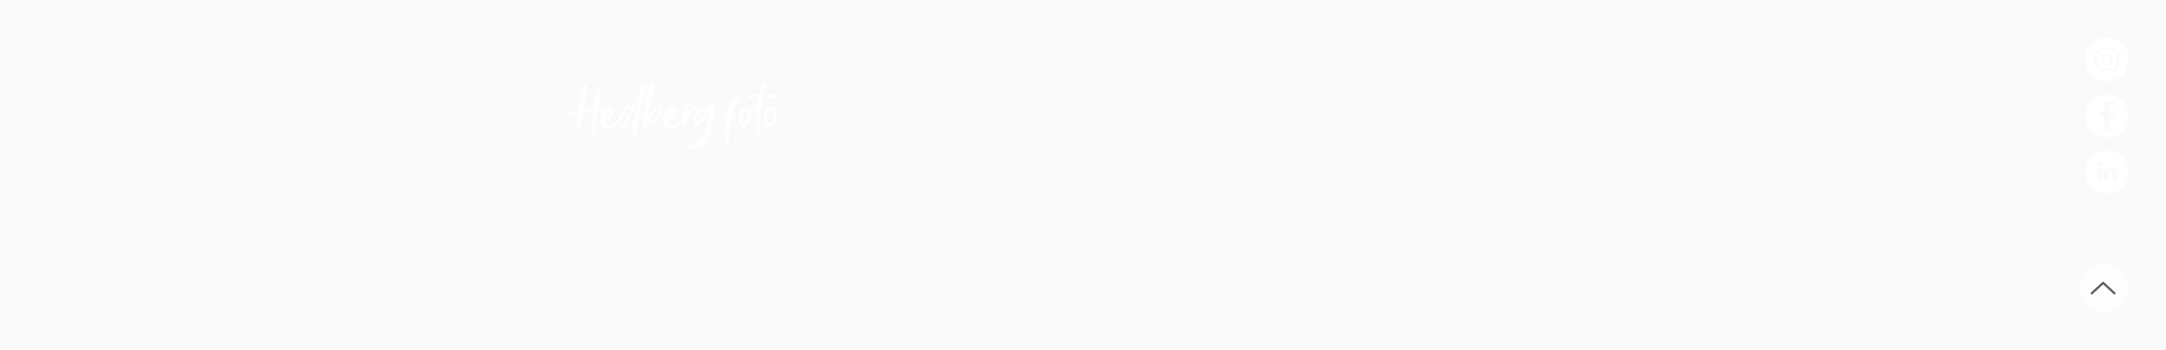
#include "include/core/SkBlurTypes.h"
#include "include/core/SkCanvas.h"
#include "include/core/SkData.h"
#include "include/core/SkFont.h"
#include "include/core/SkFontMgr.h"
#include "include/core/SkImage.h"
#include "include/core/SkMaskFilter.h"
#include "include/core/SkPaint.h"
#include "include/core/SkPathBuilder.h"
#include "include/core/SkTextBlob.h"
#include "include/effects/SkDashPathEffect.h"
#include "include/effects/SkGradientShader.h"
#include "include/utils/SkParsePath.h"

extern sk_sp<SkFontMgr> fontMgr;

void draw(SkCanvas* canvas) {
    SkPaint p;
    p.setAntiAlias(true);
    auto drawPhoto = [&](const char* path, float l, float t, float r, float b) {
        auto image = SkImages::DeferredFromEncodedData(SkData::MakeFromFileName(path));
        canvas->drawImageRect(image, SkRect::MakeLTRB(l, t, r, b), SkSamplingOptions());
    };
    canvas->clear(0xFFFAFAFA);
    drawPhoto("media/1.png", 569, 83, 776, 149);
    drawPhoto("media/2.png", 2085, 38, 2128, 81);
    drawPhoto("media/3.png", 2086, 95, 2128, 137);
    drawPhoto("media/4.png", 2086, 151, 2128, 193);
    p.setColor(0xFFFDFDFD);
    canvas->drawCircle(2104, 288, 25, p);
    drawPhoto("media/5.png", 2090, 281, 2116, 295);
}
